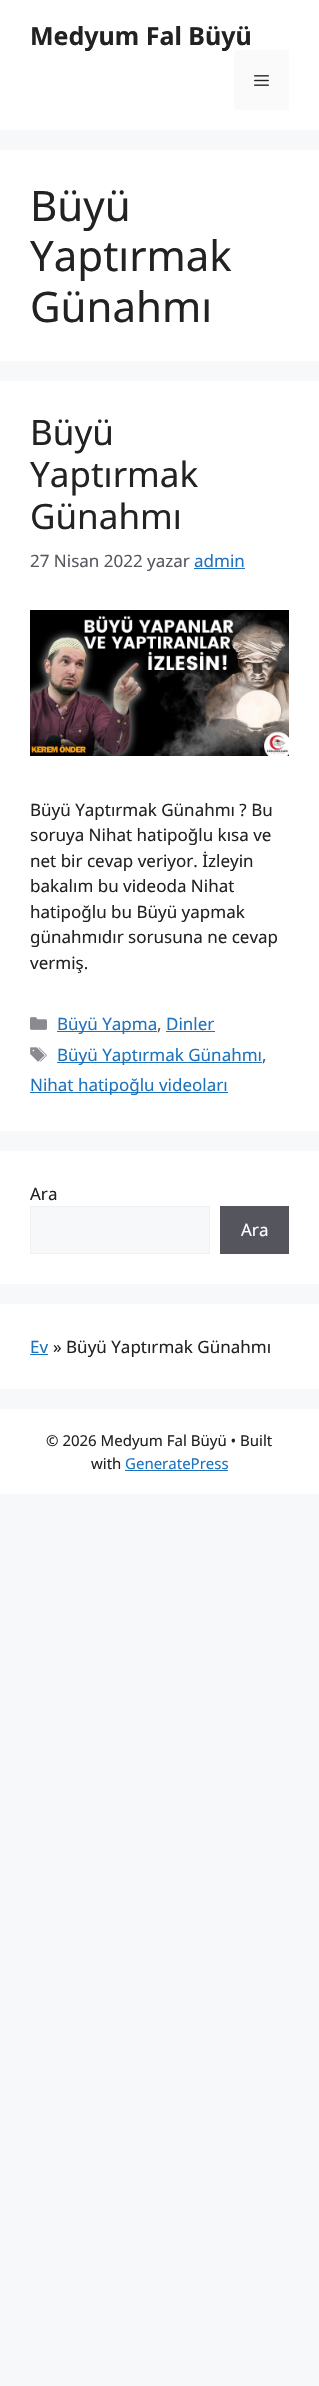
#include "include/core/SkBlurTypes.h"
#include "include/core/SkCanvas.h"
#include "include/core/SkData.h"
#include "include/core/SkFont.h"
#include "include/core/SkFontMgr.h"
#include "include/core/SkImage.h"
#include "include/core/SkMaskFilter.h"
#include "include/core/SkPaint.h"
#include "include/core/SkPathBuilder.h"
#include "include/core/SkTextBlob.h"
#include "include/effects/SkDashPathEffect.h"
#include "include/effects/SkGradientShader.h"
#include "include/utils/SkParsePath.h"

extern sk_sp<SkFontMgr> fontMgr;

void draw(SkCanvas* canvas) {
    SkPaint p;
    p.setAntiAlias(true);
    auto font = [&](const char* family, int weight, float size, bool italic = false) {
        SkFontStyle style(weight, SkFontStyle::kNormal_Width,
            italic ? SkFontStyle::kItalic_Slant : SkFontStyle::kUpright_Slant);
        SkFont result(fontMgr->matchFamilyStyle(family, style), size);
        result.setSubpixel(true);
        return result;
    };
    auto drawPhoto = [&](const char* path, float l, float t, float r, float b) {
        auto image = SkImages::DeferredFromEncodedData(SkData::MakeFromFileName(path));
        canvas->drawImageRect(image, SkRect::MakeLTRB(l, t, r, b), SkSamplingOptions());
    };
    canvas->clear(0xFFF7F8F9);
    p.setColor(0xFFFFFFFF);
    canvas->drawRect(SkRect::MakeLTRB(0, 0, 319, 130), p);
    auto font1 = font("Noto Sans", 700, 25);
    p.setColor(0xFF222222);
    canvas->drawString("Medyum Fal Büyü", 30, 45, font1, p);
    p.setColor(0xFFFAFAFA);
    canvas->drawRect(SkRect::MakeLTRB(234, 50, 289, 110), p);
    drawPhoto("media/1.png", 254, 75, 269, 86);
    p.setColor(0xFFFFFFFF);
    canvas->drawRect(SkRect::MakeLTRB(0, 150, 319, 361), p);
    auto font2 = font("Noto Sans", 400, 42);
    p.setColor(0xFF222222);
    {
        const struct { const char* s; float x, y; } items[] = {
            {"Büyü", 30, 221},
            {"Yaptırmak", 30, 271},
            {"Günahmı", 30, 322},
        };
        for (auto [s, x, y] : items) {
            canvas->drawString(s, x, y, font2, p);
        }
    }
    p.setColor(0xFFFFFFFF);
    canvas->drawRect(SkRect::MakeLTRB(0, 381, 319, 1131), p);
    auto font3 = font("Noto Sans", 400, 35);
    p.setColor(0xFF222222);
    {
        const struct { const char* s; float x, y; } items[] = {
            {"Büyü", 30, 445},
            {"Yaptırmak", 30, 487},
            {"Günahmı", 30, 529},
        };
        for (auto [s, x, y] : items) {
            canvas->drawString(s, x, y, font3, p);
        }
    }
    auto font4 = font("Noto Sans", 400, 17);
    p.setColor(0xFF575760);
    canvas->drawString("27 Nisan 2022 yazar", 30, 567, font4, p);
    p.setColor(0xFF1E73BE);
    canvas->drawString("admin", 194, 567, font4, p);
    canvas->drawRect(SkRect::MakeLTRB(194, 568, 245, 569), p);
    drawPhoto("media/2.png", 30, 610, 289, 756);
    p.setColor(0xFF222222);
    {
        const struct { const char* s; float x, y; } items[] = {
            {"Büyü Yaptırmak Günahmı ? Bu", 30, 816},
            {"soruya Nihat hatipoğlu kısa ve", 30, 841},
            {"net bir cevap veriyor. İzleyin", 30, 867},
            {"bakalım bu videoda Nihat", 30, 892},
            {"hatipoğlu bu Büyü yapmak", 30, 918},
            {"günahmıdır sorusuna ne cevap", 30, 943},
            {"vermiş.", 30, 969},
        };
        for (auto [s, x, y] : items) {
            canvas->drawString(s, x, y, font4, p);
        }
    }
    drawPhoto("media/3.png", 30, 1017, 47, 1030);
    p.setColor(0xFF1E73BE);
    canvas->drawRect(SkRect::MakeLTRB(57, 1031, 157, 1032), p);
    canvas->drawString("Büyü Yapma", 57, 1030, font4, p);
    p.setColor(0xFF575760);
    canvas->drawString(",", 157, 1030, font4, p);
    p.setColor(0xFF1E73BE);
    canvas->drawString("Dinler", 166, 1030, font4, p);
    canvas->drawRect(SkRect::MakeLTRB(166, 1031, 215, 1032), p);
    drawPhoto("media/4.png", 30, 1047, 47, 1062);
    canvas->drawRect(SkRect::MakeLTRB(57, 1062, 262, 1063), p);
    canvas->drawString("Büyü Yaptırmak Günahmı", 57, 1061, font4, p);
    p.setColor(0xFF575760);
    canvas->drawString(",", 262, 1061, font4, p);
    p.setColor(0xFF1E73BE);
    canvas->drawRect(SkRect::MakeLTRB(30, 1092, 228, 1093), p);
    canvas->drawString("Nihat hatipoğlu videoları", 30, 1091, font4, p);
    p.setColor(0xFFFFFFFF);
    canvas->drawRect(SkRect::MakeLTRB(0, 1151, 319, 1284), p);
    p.setColor(0xFF222222);
    canvas->drawString("Ara", 30, 1200, font4, p);
    p.setColor(0xFFF7F8F9);
    canvas->drawRect(SkRect::MakeLTRB(30.5f, 1206.5f, 209.5f, 1253.5f), p);
    p.setStyle(SkPaint::kStroke_Style);
    p.setStrokeWidth(1);
    p.setColor(0xFFF0F0F0);
    canvas->drawRect(SkRect::MakeLTRB(30.5f, 1206.5f, 209.5f, 1253.5f), p);
    p.setStyle(SkPaint::kFill_Style);
    p.setColor(0xFF55555E);
    canvas->drawRect(SkRect::MakeLTRB(220, 1206, 289, 1254), p);
    p.setColor(0xFFFFFFFF);
    canvas->drawString("Ara", 241, 1236, font4, p);
    canvas->drawRect(SkRect::MakeLTRB(0, 1304, 319, 1389), p);
    p.setColor(0xFF1E73BE);
    canvas->drawString("Ev", 30, 1353, font4, p);
    canvas->drawRect(SkRect::MakeLTRB(30, 1354, 48, 1355), p);
    p.setColor(0xFF222222);
    canvas->drawString("» Büyü Yaptırmak Günahmı", 53, 1353, font4, p);
    p.setColor(0xFFFFFFFF);
    canvas->drawRect(SkRect::MakeLTRB(0, 1409, 319, 1494), p);
    auto font5 = font("Noto Sans", 400, 15);
    p.setColor(0xFF222222);
    canvas->drawString("© 2026 Medyum Fal Büyü • Built", 46, 1446, font5, p);
    canvas->drawString("with", 91, 1469, font5, p);
    p.setColor(0xFF1E73BE);
    canvas->drawString("GeneratePress", 125, 1469, font5, p);
    canvas->drawRect(SkRect::MakeLTRB(125, 1470, 228, 1471), p);
}
